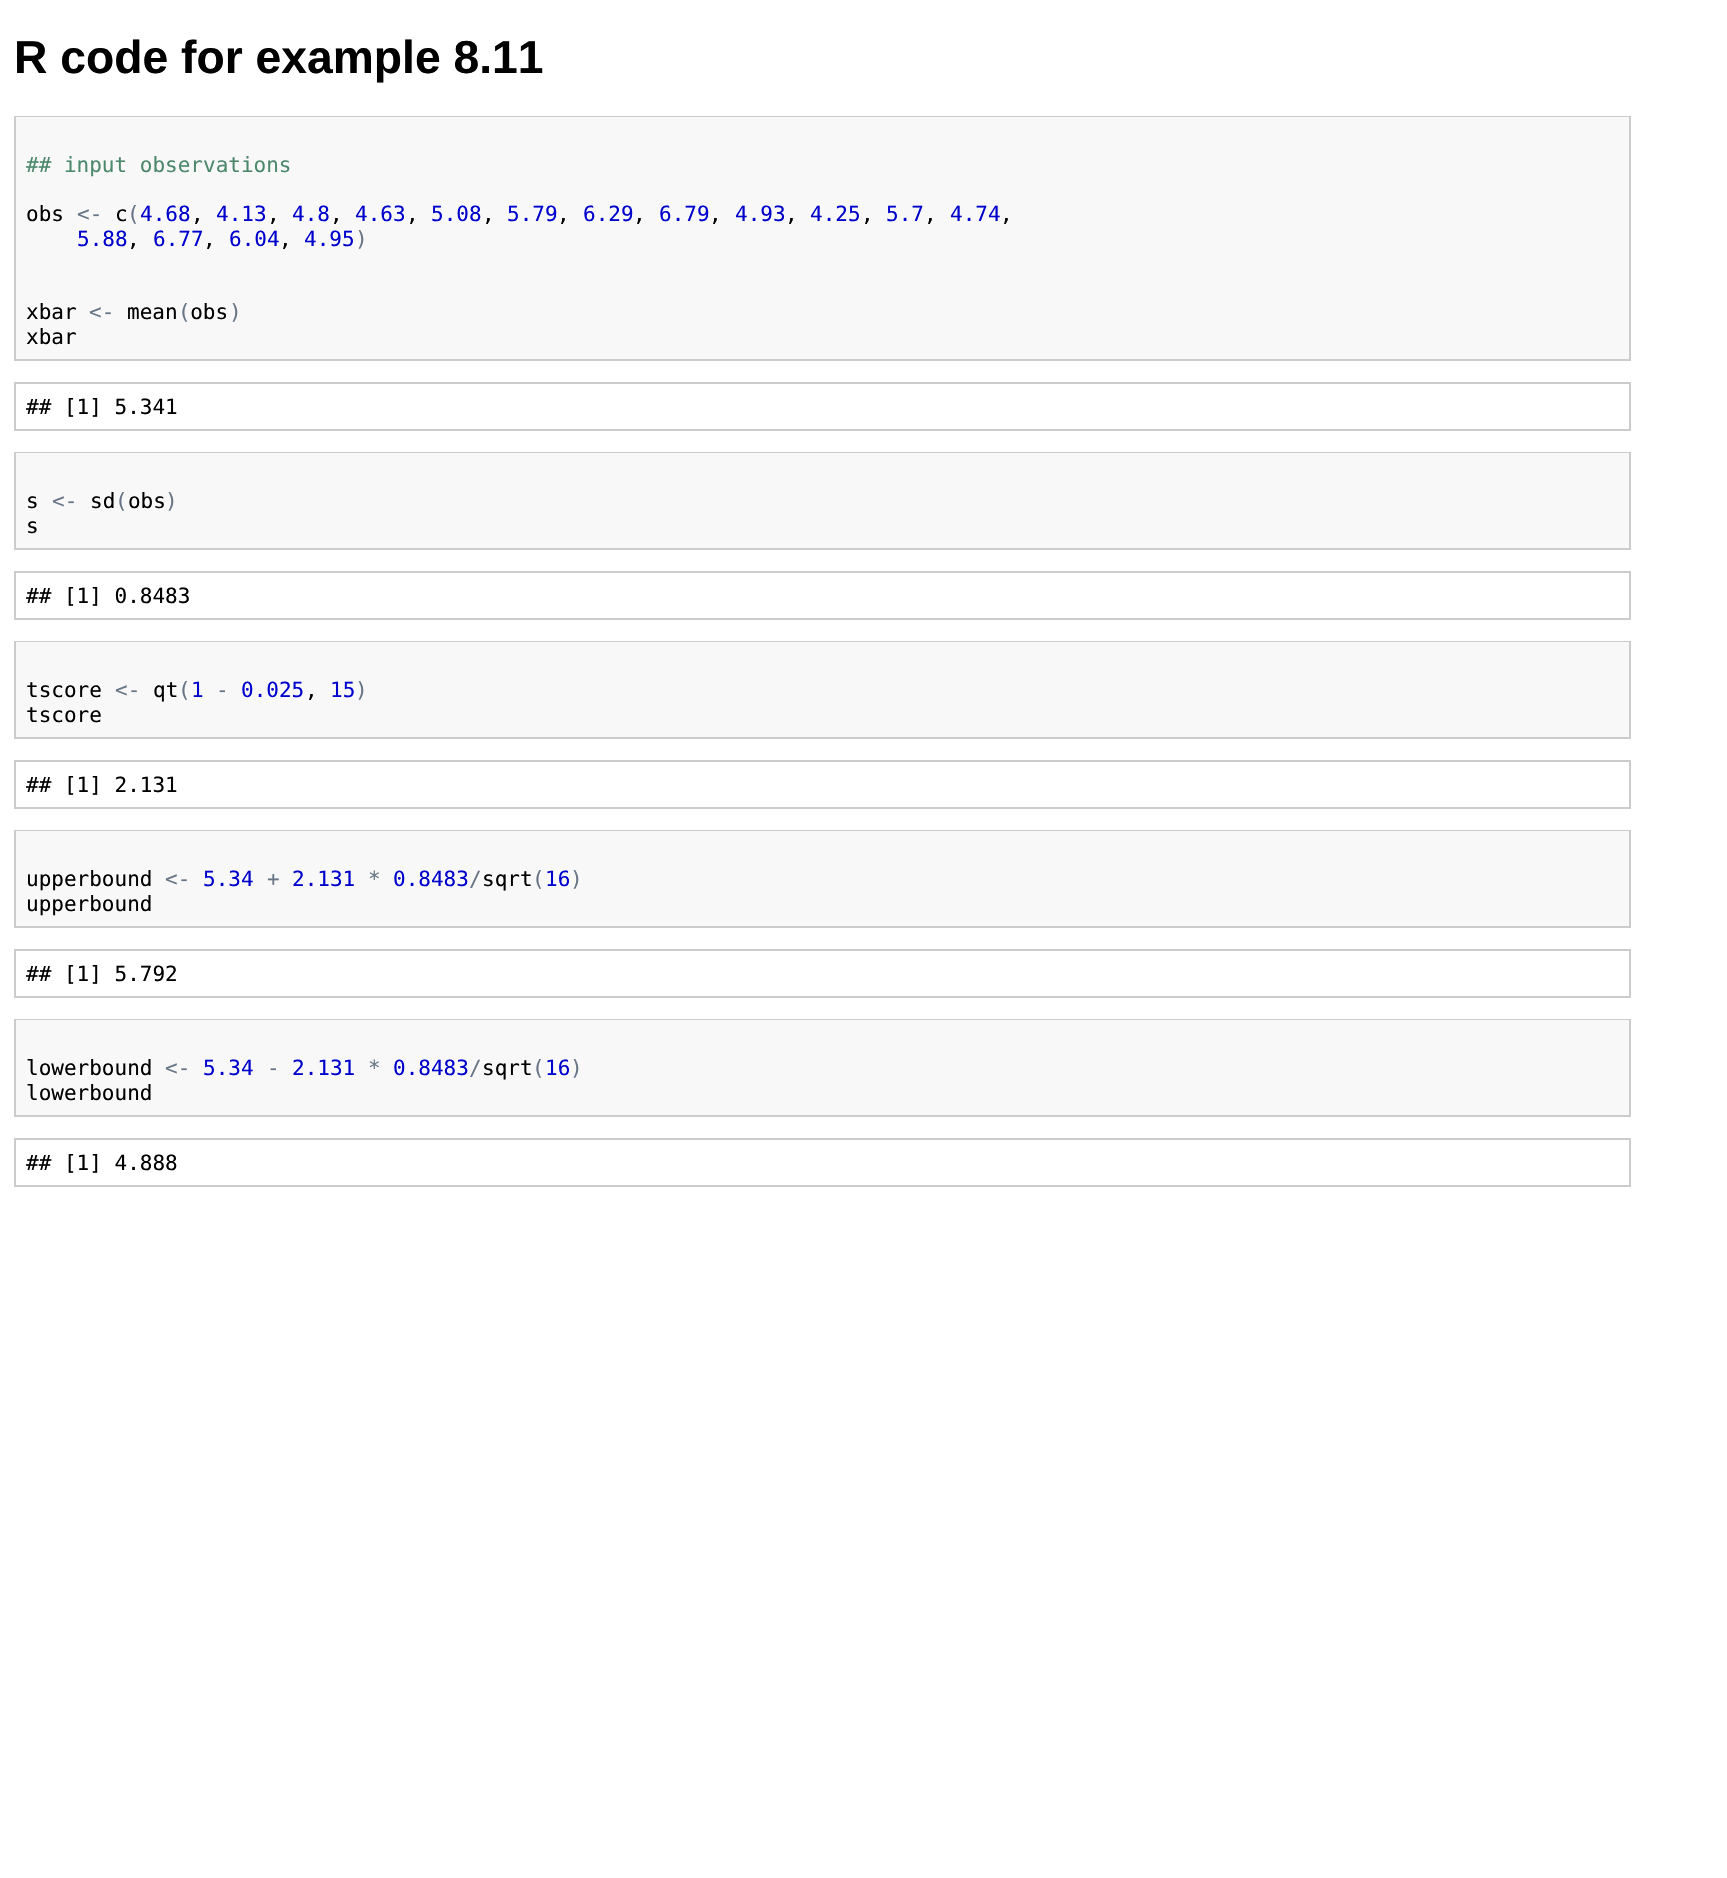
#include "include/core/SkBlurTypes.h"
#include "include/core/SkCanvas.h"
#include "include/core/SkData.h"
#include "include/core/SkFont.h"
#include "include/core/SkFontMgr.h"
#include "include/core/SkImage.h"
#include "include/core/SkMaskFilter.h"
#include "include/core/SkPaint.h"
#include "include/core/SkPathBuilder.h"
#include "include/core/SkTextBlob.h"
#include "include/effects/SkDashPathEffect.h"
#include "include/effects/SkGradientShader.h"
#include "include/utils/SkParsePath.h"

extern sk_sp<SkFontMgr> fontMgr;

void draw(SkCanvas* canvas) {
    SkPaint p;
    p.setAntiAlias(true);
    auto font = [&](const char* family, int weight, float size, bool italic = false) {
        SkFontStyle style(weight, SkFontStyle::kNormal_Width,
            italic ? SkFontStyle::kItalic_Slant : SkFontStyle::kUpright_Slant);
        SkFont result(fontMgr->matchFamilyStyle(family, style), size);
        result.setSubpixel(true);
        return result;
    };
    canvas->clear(0xFFFFFFFF);
    auto font1 = font("Liberation Sans", 700, 46.25f);
    p.setColor(0xFF000000);
    canvas->drawString("R code for example 8.11", 14, 73, font1, p);
    p.setStyle(SkPaint::kStroke_Style);
    p.setStrokeWidth(2);
    p.setColor(0xFFCCCCCC);
    canvas->drawRect(SkRect::MakeLTRB(15, 117, 1630, 360), p);
    p.setStyle(SkPaint::kFill_Style);
    p.setColor(0xFFF8F8F8);
    canvas->drawRect(SkRect::MakeLTRB(16, 117, 1629, 359), p);
    auto font2 = font("DejaVu Sans Mono", 400, 21);
    p.setColor(0xFF4C886B);
    canvas->drawString("## input observations", 26, 172, font2, p);
    p.setColor(0xFF000000);
    canvas->drawString("obs", 26, 221, font2, p);
    p.setColor(0xFF687687);
    canvas->drawString("<-", 77, 221, font2, p);
    p.setColor(0xFF000000);
    canvas->drawString("c", 115, 221, font2, p);
    p.setColor(0xFF687687);
    canvas->drawString("(", 127, 221, font2, p);
    p.setColor(0xFF0000CD);
    canvas->drawString("4.68", 140, 221, font2, p);
    p.setColor(0xFF000000);
    canvas->drawString(",", 191, 221, font2, p);
    p.setColor(0xFF0000CD);
    canvas->drawString("4.13", 216, 221, font2, p);
    p.setColor(0xFF000000);
    canvas->drawString(",", 267, 221, font2, p);
    p.setColor(0xFF0000CD);
    canvas->drawString("4.8", 292, 221, font2, p);
    p.setColor(0xFF000000);
    canvas->drawString(",", 330, 221, font2, p);
    p.setColor(0xFF0000CD);
    canvas->drawString("4.63", 355, 221, font2, p);
    p.setColor(0xFF000000);
    canvas->drawString(",", 406, 221, font2, p);
    p.setColor(0xFF0000CD);
    canvas->drawString("5.08", 431, 221, font2, p);
    p.setColor(0xFF000000);
    canvas->drawString(",", 482, 221, font2, p);
    p.setColor(0xFF0000CD);
    canvas->drawString("5.79", 507, 221, font2, p);
    p.setColor(0xFF000000);
    canvas->drawString(",", 557, 221, font2, p);
    p.setColor(0xFF0000CD);
    canvas->drawString("6.29", 583, 221, font2, p);
    p.setColor(0xFF000000);
    canvas->drawString(",", 633, 221, font2, p);
    p.setColor(0xFF0000CD);
    canvas->drawString("6.79", 659, 221, font2, p);
    p.setColor(0xFF000000);
    canvas->drawString(",", 709, 221, font2, p);
    p.setColor(0xFF0000CD);
    canvas->drawString("4.93", 735, 221, font2, p);
    p.setColor(0xFF000000);
    canvas->drawString(",", 785, 221, font2, p);
    p.setColor(0xFF0000CD);
    canvas->drawString("4.25", 810, 221, font2, p);
    p.setColor(0xFF000000);
    canvas->drawString(",", 861, 221, font2, p);
    p.setColor(0xFF0000CD);
    canvas->drawString("5.7", 886, 221, font2, p);
    p.setColor(0xFF000000);
    canvas->drawString(",", 924, 221, font2, p);
    p.setColor(0xFF0000CD);
    canvas->drawString("4.74", 950, 221, font2, p);
    p.setColor(0xFF000000);
    canvas->drawString(",", 1000, 221, font2, p);
    p.setColor(0xFF0000CD);
    canvas->drawString("5.88", 77, 246, font2, p);
    p.setColor(0xFF000000);
    canvas->drawString(",", 127, 246, font2, p);
    p.setColor(0xFF0000CD);
    canvas->drawString("6.77", 153, 246, font2, p);
    p.setColor(0xFF000000);
    canvas->drawString(",", 203, 246, font2, p);
    p.setColor(0xFF0000CD);
    canvas->drawString("6.04", 229, 246, font2, p);
    p.setColor(0xFF000000);
    canvas->drawString(",", 279, 246, font2, p);
    p.setColor(0xFF0000CD);
    canvas->drawString("4.95", 304, 246, font2, p);
    p.setColor(0xFF687687);
    canvas->drawString(")", 355, 246, font2, p);
    p.setColor(0xFF000000);
    canvas->drawString("xbar", 26, 319, font2, p);
    canvas->drawString("mean obs", 127, 319, font2, p);
    p.setColor(0xFF687687);
    {
        const struct { const char* s; float x, y; } items[] = {
            {"<-", 89, 319},
            {"(", 178, 319},
            {")", 229, 319},
        };
        for (auto [s, x, y] : items) {
            canvas->drawString(s, x, y, font2, p);
        }
    }
    p.setColor(0xFF000000);
    canvas->drawString("xbar", 26, 344, font2, p);
    p.setStyle(SkPaint::kStroke_Style);
    p.setColor(0xFFCCCCCC);
    canvas->drawRect(SkRect::MakeLTRB(15, 383, 1630, 430), p);
    p.setStyle(SkPaint::kFill_Style);
    p.setColor(0xFF000000);
    canvas->drawString("## [1] 5.341", 26, 414, font2, p);
    p.setStyle(SkPaint::kStroke_Style);
    p.setColor(0xFFCCCCCC);
    canvas->drawRect(SkRect::MakeLTRB(15, 453, 1630, 549), p);
    p.setStyle(SkPaint::kFill_Style);
    p.setColor(0xFFF8F8F8);
    canvas->drawRect(SkRect::MakeLTRB(16, 453, 1629, 548), p);
    p.setColor(0xFF000000);
    canvas->drawString("sd obs", 90, 508, font2, p);
    canvas->drawString("s", 26, 508, font2, p);
    p.setColor(0xFF687687);
    {
        const struct { const char* s; float x, y; } items[] = {
            {"<-", 52, 508},
            {"(", 115, 508},
            {")", 165, 508},
        };
        for (auto [s, x, y] : items) {
            canvas->drawString(s, x, y, font2, p);
        }
    }
    p.setColor(0xFF000000);
    canvas->drawString("s", 26, 533, font2, p);
    p.setStyle(SkPaint::kStroke_Style);
    p.setColor(0xFFCCCCCC);
    canvas->drawRect(SkRect::MakeLTRB(15, 572, 1630, 619), p);
    p.setStyle(SkPaint::kFill_Style);
    p.setColor(0xFF000000);
    canvas->drawString("## [1] 0.8483", 26, 603, font2, p);
    p.setStyle(SkPaint::kStroke_Style);
    p.setColor(0xFFCCCCCC);
    canvas->drawRect(SkRect::MakeLTRB(15, 642, 1630, 738), p);
    p.setStyle(SkPaint::kFill_Style);
    p.setColor(0xFFF8F8F8);
    canvas->drawRect(SkRect::MakeLTRB(16, 642, 1629, 737), p);
    p.setColor(0xFF000000);
    canvas->drawString("tscore", 26, 697, font2, p);
    p.setColor(0xFF687687);
    canvas->drawString("<-", 115, 697, font2, p);
    p.setColor(0xFF000000);
    canvas->drawString("qt", 153, 697, font2, p);
    p.setColor(0xFF687687);
    canvas->drawString("(", 178, 697, font2, p);
    p.setColor(0xFF0000CD);
    canvas->drawString("1", 191, 697, font2, p);
    p.setColor(0xFF687687);
    canvas->drawString("-", 216, 697, font2, p);
    p.setColor(0xFF0000CD);
    canvas->drawString("0.025", 241, 697, font2, p);
    canvas->drawString("15", 330, 697, font2, p);
    p.setColor(0xFF687687);
    canvas->drawString(")", 355, 697, font2, p);
    p.setColor(0xFF000000);
    canvas->drawString(",", 305, 697, font2, p);
    canvas->drawString("tscore", 26, 722, font2, p);
    p.setStyle(SkPaint::kStroke_Style);
    p.setColor(0xFFCCCCCC);
    canvas->drawRect(SkRect::MakeLTRB(15, 761, 1630, 808), p);
    p.setStyle(SkPaint::kFill_Style);
    p.setColor(0xFF000000);
    canvas->drawString("## [1] 2.131", 26, 792, font2, p);
    p.setStyle(SkPaint::kStroke_Style);
    p.setColor(0xFFCCCCCC);
    canvas->drawRect(SkRect::MakeLTRB(15, 831, 1630, 927), p);
    p.setStyle(SkPaint::kFill_Style);
    p.setColor(0xFFF8F8F8);
    canvas->drawRect(SkRect::MakeLTRB(16, 831, 1629, 926), p);
    p.setColor(0xFF000000);
    canvas->drawString("upperbound", 26, 886, font2, p);
    p.setColor(0xFF687687);
    canvas->drawString("<-", 165, 886, font2, p);
    p.setColor(0xFF0000CD);
    canvas->drawString("5.34", 203, 886, font2, p);
    p.setColor(0xFF687687);
    canvas->drawString("+", 267, 886, font2, p);
    p.setColor(0xFF0000CD);
    canvas->drawString("2.131", 292, 886, font2, p);
    p.setColor(0xFF687687);
    canvas->drawString("*", 368, 886, font2, p);
    p.setColor(0xFF0000CD);
    canvas->drawString("0.8483", 393, 886, font2, p);
    p.setColor(0xFF687687);
    canvas->drawString("/", 469, 886, font2, p);
    p.setColor(0xFF000000);
    canvas->drawString("sqrt", 482, 886, font2, p);
    p.setColor(0xFF687687);
    canvas->drawString("(", 532, 886, font2, p);
    p.setColor(0xFF0000CD);
    canvas->drawString("16", 545, 886, font2, p);
    p.setColor(0xFF687687);
    canvas->drawString(")", 570, 886, font2, p);
    p.setColor(0xFF000000);
    canvas->drawString("upperbound", 26, 911, font2, p);
    p.setStyle(SkPaint::kStroke_Style);
    p.setColor(0xFFCCCCCC);
    canvas->drawRect(SkRect::MakeLTRB(15, 950, 1630, 997), p);
    p.setStyle(SkPaint::kFill_Style);
    p.setColor(0xFF000000);
    canvas->drawString("## [1] 5.792", 26, 981, font2, p);
    p.setStyle(SkPaint::kStroke_Style);
    p.setColor(0xFFCCCCCC);
    canvas->drawRect(SkRect::MakeLTRB(15, 1020, 1630, 1116), p);
    p.setStyle(SkPaint::kFill_Style);
    p.setColor(0xFFF8F8F8);
    canvas->drawRect(SkRect::MakeLTRB(16, 1020, 1629, 1115), p);
    p.setColor(0xFF000000);
    canvas->drawString("lowerbound", 26, 1075, font2, p);
    p.setColor(0xFF687687);
    canvas->drawString("<-", 165, 1075, font2, p);
    p.setColor(0xFF0000CD);
    canvas->drawString("5.34", 203, 1075, font2, p);
    p.setColor(0xFF687687);
    canvas->drawString("-", 267, 1075, font2, p);
    p.setColor(0xFF0000CD);
    canvas->drawString("2.131", 292, 1075, font2, p);
    p.setColor(0xFF687687);
    canvas->drawString("*", 368, 1075, font2, p);
    p.setColor(0xFF0000CD);
    canvas->drawString("0.8483", 393, 1075, font2, p);
    p.setColor(0xFF687687);
    canvas->drawString("/", 469, 1075, font2, p);
    p.setColor(0xFF000000);
    canvas->drawString("sqrt", 482, 1075, font2, p);
    p.setColor(0xFF687687);
    canvas->drawString("(", 532, 1075, font2, p);
    p.setColor(0xFF0000CD);
    canvas->drawString("16", 545, 1075, font2, p);
    p.setColor(0xFF687687);
    canvas->drawString(")", 570, 1075, font2, p);
    p.setColor(0xFF000000);
    canvas->drawString("lowerbound", 26, 1100, font2, p);
    p.setStyle(SkPaint::kStroke_Style);
    p.setColor(0xFFCCCCCC);
    canvas->drawRect(SkRect::MakeLTRB(15, 1139, 1630, 1186), p);
    p.setStyle(SkPaint::kFill_Style);
    p.setColor(0xFF000000);
    canvas->drawString("## [1] 4.888", 26, 1170, font2, p);
}
